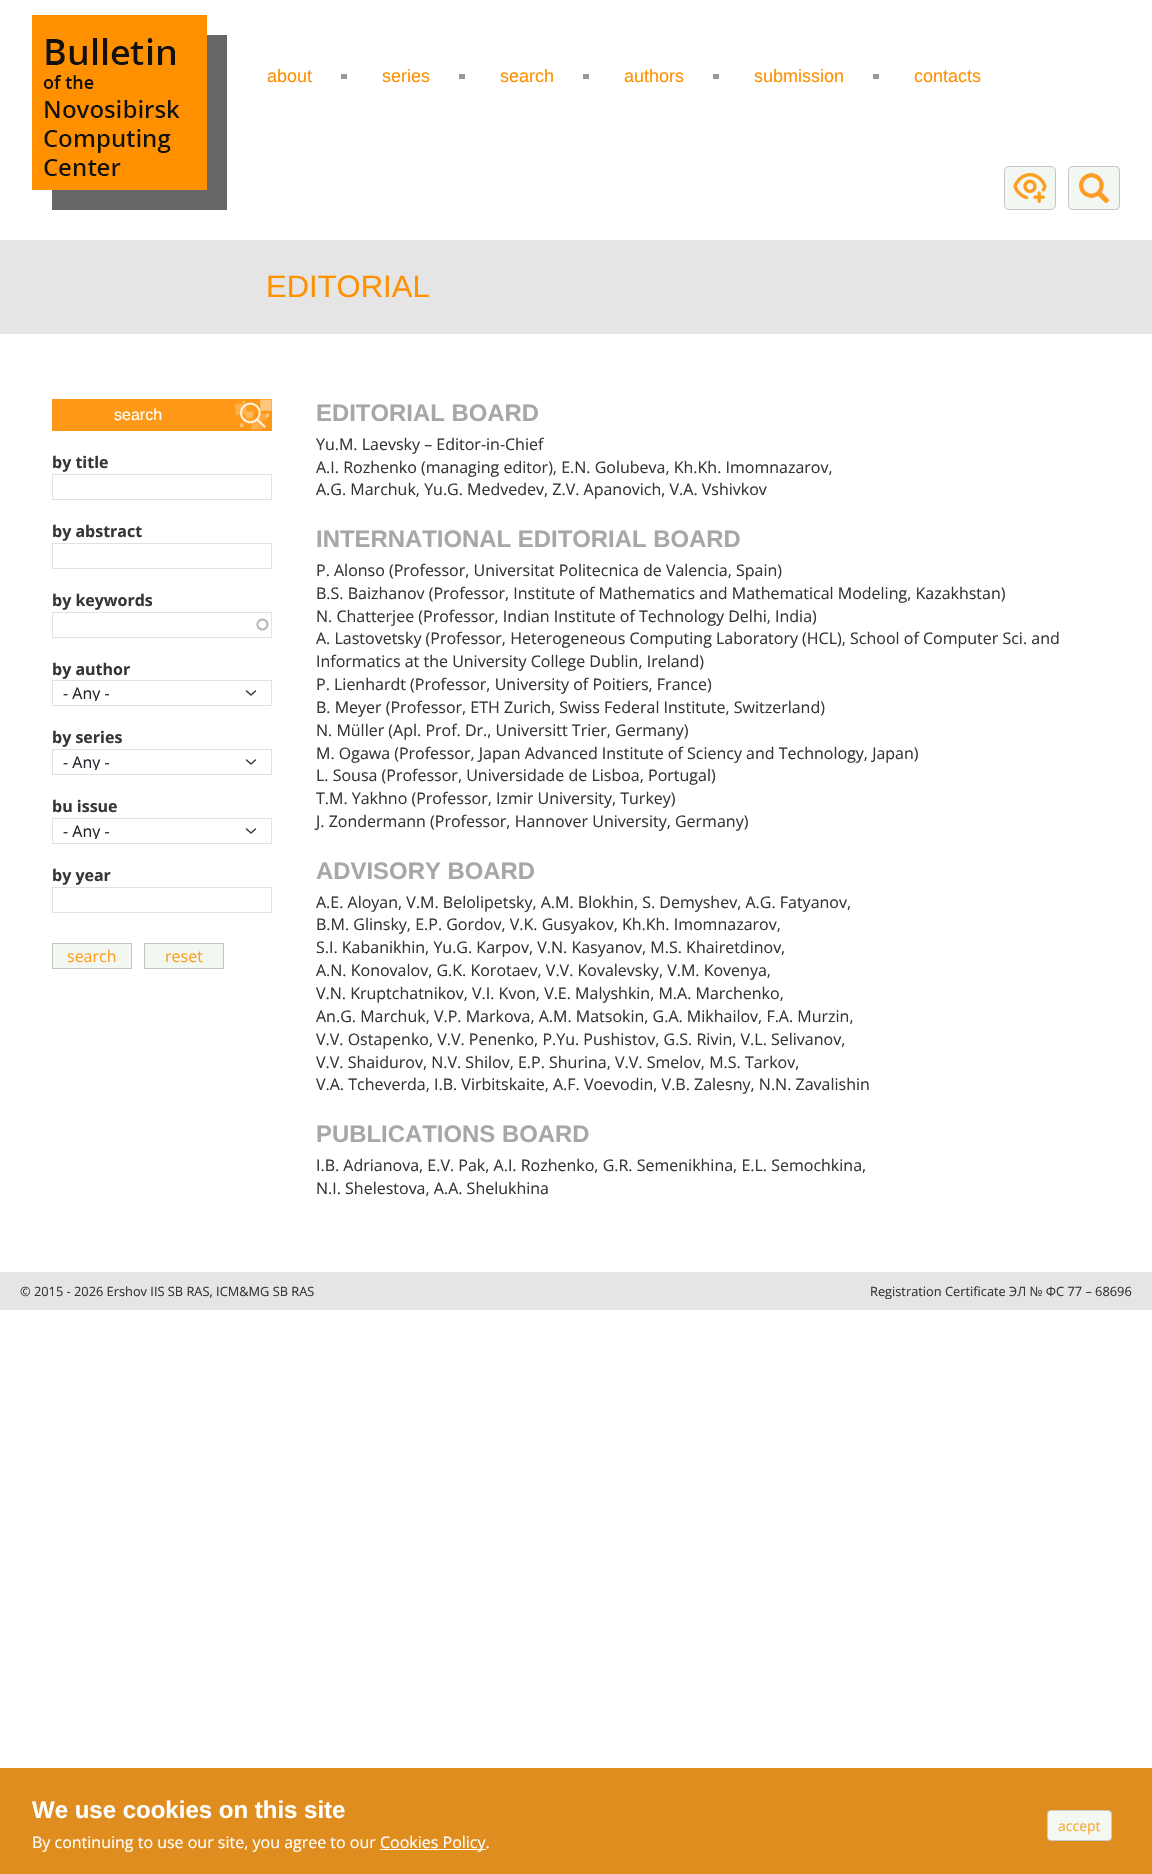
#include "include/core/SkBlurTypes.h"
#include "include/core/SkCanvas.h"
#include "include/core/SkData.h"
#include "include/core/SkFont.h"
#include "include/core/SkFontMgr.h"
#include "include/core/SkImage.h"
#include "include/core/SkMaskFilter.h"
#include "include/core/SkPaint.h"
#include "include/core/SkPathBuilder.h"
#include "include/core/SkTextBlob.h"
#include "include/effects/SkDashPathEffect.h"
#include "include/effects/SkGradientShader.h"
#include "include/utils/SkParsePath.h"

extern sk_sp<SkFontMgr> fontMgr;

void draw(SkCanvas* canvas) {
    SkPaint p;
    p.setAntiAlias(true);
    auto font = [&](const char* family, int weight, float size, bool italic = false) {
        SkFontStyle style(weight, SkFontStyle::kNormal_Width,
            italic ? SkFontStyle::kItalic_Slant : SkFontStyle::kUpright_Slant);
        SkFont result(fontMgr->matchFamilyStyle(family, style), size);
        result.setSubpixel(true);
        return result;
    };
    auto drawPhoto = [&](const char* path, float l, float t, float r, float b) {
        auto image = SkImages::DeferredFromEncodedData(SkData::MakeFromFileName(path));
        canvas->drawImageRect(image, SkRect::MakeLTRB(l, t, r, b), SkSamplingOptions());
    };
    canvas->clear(0xFFFFFFFF);
    drawPhoto("media/1.png", 32, 15, 227, 210);
    p.setColor(0xFF999999);
    canvas->drawRect(SkRect::MakeLTRB(341, 74, 347, 79), p);
    auto font1 = font("Liberation Sans", 400, 18);
    p.setColor(0xFFFF9000);
    canvas->drawString("about", 267, 82, font1, p);
    p.setColor(0xFF999999);
    canvas->drawRect(SkRect::MakeLTRB(459, 74, 465, 79), p);
    p.setColor(0xFFFF9000);
    canvas->drawString("series", 382, 82, font1, p);
    p.setColor(0xFF999999);
    canvas->drawRect(SkRect::MakeLTRB(583, 74, 589, 79), p);
    p.setColor(0xFFFF9000);
    canvas->drawString("search", 500, 82, font1, p);
    p.setColor(0xFF999999);
    canvas->drawRect(SkRect::MakeLTRB(713, 74, 719, 79), p);
    p.setColor(0xFFFF9000);
    canvas->drawString("authors", 624, 82, font1, p);
    p.setColor(0xFF999999);
    canvas->drawRect(SkRect::MakeLTRB(873, 74, 879, 79), p);
    p.setColor(0xFFFF9000);
    canvas->drawString("submission", 754, 82, font1, p);
    canvas->drawString("contacts", 914, 82, font1, p);
    p.setColor(0xFFF3F7F1);
    canvas->drawRoundRect(SkRect::MakeLTRB(1004, 166, 1056, 210), 5, 5, p);
    drawPhoto("media/2.png", 1013, 173, 1047, 203);
    p.setStyle(SkPaint::kStroke_Style);
    p.setStrokeWidth(1);
    p.setColor(0xFFC4C4C4);
    canvas->drawRoundRect(SkRect::MakeLTRB(1004.5f, 166.5f, 1055.5f, 209.5f), 4.5f, 4.5f, p);
    drawPhoto("media/3.png", 1068, 166, 1120, 210);
    p.setStyle(SkPaint::kFill_Style);
    p.setColor(0xFFE6E5E5);
    canvas->drawRect(SkRect::MakeLTRB(0, 240, 1152, 334), p);
    auto font2 = font("Liberation Sans", 400, 31);
    p.setColor(0xFFFF9000);
    canvas->drawString("EDITORIAL", 266, 297, font2, p);
    p.setColor(0xFFFF9817);
    canvas->drawRect(SkRect::MakeLTRB(52, 399, 272, 431), p);
    drawPhoto("media/4.png", 235, 399, 272, 430);
    auto font3 = font("Liberation Sans", 400, 16);
    p.setColor(0xFFFFFFFF);
    canvas->drawString("search", 114, 420, font3, p);
    auto font4 = font("Open Sans", 700, 16);
    p.setColor(0xFF363636);
    canvas->drawString("by title", 52, 468, font4, p);
    p.setStyle(SkPaint::kStroke_Style);
    p.setColor(0xFFDEE2E6);
    canvas->drawRect(SkRect::MakeLTRB(52.5f, 474.5f, 271.5f, 499.5f), p);
    p.setStyle(SkPaint::kFill_Style);
    p.setColor(0xFF363636);
    canvas->drawString("by abstract", 52, 537, font4, p);
    p.setStyle(SkPaint::kStroke_Style);
    p.setColor(0xFFDEE2E6);
    canvas->drawRect(SkRect::MakeLTRB(52.5f, 543.5f, 271.5f, 568.5f), p);
    p.setStyle(SkPaint::kFill_Style);
    p.setColor(0xFF363636);
    canvas->drawString("by keywords", 52, 606, font4, p);
    drawPhoto("media/5.png", 256, 618, 269, 631);
    p.setStyle(SkPaint::kStroke_Style);
    p.setColor(0xFFDEE2E6);
    canvas->drawRect(SkRect::MakeLTRB(52.5f, 612.5f, 271.5f, 637.5f), p);
    p.setStyle(SkPaint::kFill_Style);
    p.setColor(0xFF363636);
    canvas->drawString("by author", 52, 675, font4, p);
    p.setStyle(SkPaint::kStroke_Style);
    p.setStrokeWidth(1.5f);
    p.setStrokeCap(SkPaint::kRound_Cap);
    p.setStrokeJoin(SkPaint::kRound_Join);
    p.setColor(0xFF343A40);
    canvas->drawPath(SkPathBuilder().moveTo(246.5f, 691).lineTo(251, 695).lineTo(255.5f, 691).detach(), p);
    p.setStrokeWidth(1);
    p.setStrokeCap(SkPaint::kButt_Cap);
    p.setStrokeJoin(SkPaint::kMiter_Join);
    p.setColor(0xFFDEE2E6);
    canvas->drawRect(SkRect::MakeLTRB(52.5f, 680.5f, 271.5f, 705.5f), p);
    canvas->save();
    canvas->clipRect(SkRect::MakeLTRB(63, 685, 261, 701));
    auto font5 = font("Open Sans", 400, 16);
    p.setStyle(SkPaint::kFill_Style);
    p.setColor(0xFF212529);
    canvas->drawString("- Any -", 63, 699, font5, p);
    canvas->restore();
    p.setColor(0xFF363636);
    canvas->drawString("by series", 52, 743, font4, p);
    p.setStyle(SkPaint::kStroke_Style);
    p.setStrokeWidth(1.5f);
    p.setStrokeCap(SkPaint::kRound_Cap);
    p.setStrokeJoin(SkPaint::kRound_Join);
    p.setColor(0xFF343A40);
    canvas->drawPath(SkPathBuilder().moveTo(246.5f, 760).lineTo(251, 764).lineTo(255.5f, 760).detach(), p);
    p.setStrokeWidth(1);
    p.setStrokeCap(SkPaint::kButt_Cap);
    p.setStrokeJoin(SkPaint::kMiter_Join);
    p.setColor(0xFFDEE2E6);
    canvas->drawRect(SkRect::MakeLTRB(52.5f, 749.5f, 271.5f, 774.5f), p);
    canvas->save();
    canvas->clipRect(SkRect::MakeLTRB(63, 754, 261, 770));
    p.setStyle(SkPaint::kFill_Style);
    p.setColor(0xFF212529);
    canvas->drawString("- Any -", 63, 768, font5, p);
    canvas->restore();
    p.setColor(0xFF363636);
    canvas->drawString("bu issue", 52, 812, font4, p);
    p.setStyle(SkPaint::kStroke_Style);
    p.setStrokeWidth(1.5f);
    p.setStrokeCap(SkPaint::kRound_Cap);
    p.setStrokeJoin(SkPaint::kRound_Join);
    p.setColor(0xFF343A40);
    canvas->drawPath(SkPathBuilder().moveTo(246.5f, 829).lineTo(251, 833).lineTo(255.5f, 829).detach(), p);
    p.setStrokeWidth(1);
    p.setStrokeCap(SkPaint::kButt_Cap);
    p.setStrokeJoin(SkPaint::kMiter_Join);
    p.setColor(0xFFDEE2E6);
    canvas->drawRect(SkRect::MakeLTRB(52.5f, 818.5f, 271.5f, 843.5f), p);
    canvas->save();
    canvas->clipRect(SkRect::MakeLTRB(63, 823, 261, 839));
    p.setStyle(SkPaint::kFill_Style);
    p.setColor(0xFF212529);
    canvas->drawString("- Any -", 63, 837, font5, p);
    canvas->restore();
    p.setColor(0xFF363636);
    canvas->drawString("by year", 52, 881, font4, p);
    p.setStyle(SkPaint::kStroke_Style);
    p.setColor(0xFFDEE2E6);
    canvas->drawRect(SkRect::MakeLTRB(52.5f, 887.5f, 271.5f, 912.5f), p);
    p.setStyle(SkPaint::kFill_Style);
    p.setColor(0xFFF3F7F1);
    canvas->drawRect(SkRect::MakeLTRB(52.5f, 943.5f, 131.5f, 968.5f), p);
    p.setStyle(SkPaint::kStroke_Style);
    p.setColor(0xFFC4C4C4);
    canvas->drawRect(SkRect::MakeLTRB(52.5f, 943.5f, 131.5f, 968.5f), p);
    p.setStyle(SkPaint::kFill_Style);
    p.setColor(0xFFFD9E20);
    canvas->drawString("search", 67, 962, font5, p);
    p.setColor(0xFFF3F7F1);
    canvas->drawRect(SkRect::MakeLTRB(144.5f, 943.5f, 223.5f, 968.5f), p);
    p.setStyle(SkPaint::kStroke_Style);
    p.setColor(0xFFC4C4C4);
    canvas->drawRect(SkRect::MakeLTRB(144.5f, 943.5f, 223.5f, 968.5f), p);
    p.setStyle(SkPaint::kFill_Style);
    p.setColor(0xFFFD9E20);
    canvas->drawString("reset", 165, 962, font5, p);
    auto font6 = font("Liberation Sans", 700, 23.9f);
    p.setColor(0xFFA7A7A7);
    canvas->drawString("EDITORIAL BOARD", 316, 421, font6, p);
    p.setColor(0xFF363636);
    {
        const struct { const char* s; float x, y; } items[] = {
            {"Yu.M. Laevsky – Editor-in-Chief", 316, 450},
            {"A.I. Rozhenko (managing editor), E.N. Golubeva, Kh.Kh. Imomnazarov,", 316, 473},
            {"A.G. Marchuk, Yu.G. Medvedev, Z.V. Apanovich, V.A. Vshivkov", 316, 495},
        };
        for (auto [s, x, y] : items) {
            canvas->drawString(s, x, y, font5, p);
        }
    }
    p.setColor(0xFFA7A7A7);
    canvas->drawString("INTERNATIONAL EDITORIAL BOARD", 316, 547, font6, p);
    p.setColor(0xFF363636);
    {
        const struct { const char* s; float x, y; } items[] = {
            {"P. Alonso (Professor, Universitat Politecnica de Valencia, Spain)", 316, 576},
            {"B.S. Baizhanov (Professor, Institute of Mathematics and Mathematical Modeling, Kazakhstan)", 316, 599},
            {"N. Chatterjee (Professor, Indian Institute of Technology Delhi, India)", 316, 622},
            {"A. Lastovetsky (Professor, Heterogeneous Computing Laboratory (HCL), School of Computer Sci. and", 316, 644},
            {"Informatics at the University College Dublin, Ireland)", 316, 667},
            {"P. Lienhardt (Professor, University of Poitiers, France)", 316, 690},
            {"B. Meyer (Professor, ETH Zurich, Swiss Federal Institute, Switzerland)", 316, 713},
            {"N. Müller (Apl. Prof. Dr., Universitt Trier, Germany)", 316, 736},
            {"M. Ogawa (Professor, Japan Advanced Institute of Scienсу and Technology, Japan)", 316, 759},
            {"L. Sousa (Professor, Universidade de Lisboa, Portugal)", 316, 781},
            {"T.M. Yakhno (Professor, Izmir University, Turkey)", 316, 804},
            {"J. Zondermann (Professor, Hannover University, Germany)", 316, 827},
        };
        for (auto [s, x, y] : items) {
            canvas->drawString(s, x, y, font5, p);
        }
    }
    p.setColor(0xFFA7A7A7);
    canvas->drawString("ADVISORY BOARD", 316, 879, font6, p);
    p.setColor(0xFF363636);
    {
        const struct { const char* s; float x, y; } items[] = {
            {"A.E. Aloyan, V.M. Belolipetsky, A.M. Blokhin, S. Demyshev, A.G. Fatyanov,", 316, 908},
            {"B.M. Glinsky, E.P. Gordov, V.K. Gusyakov, Kh.Kh. Imomnazarov,", 316, 930},
            {"S.I. Kabanikhin, Yu.G. Karpov, V.N. Kasyanov, M.S. Khairetdinov,", 316, 953},
            {"A.N. Konovalov, G.K. Korotaev, V.V. Kovalevsky, V.M. Kovenya,", 316, 976},
            {"V.N. Kruptchatnikov, V.I. Kvon, V.E. Malyshkin, M.A. Marchenko,", 316, 999},
            {"An.G. Marchuk, V.P. Markova, A.M. Matsokin, G.A. Mikhailov, F.A. Murzin,", 316, 1022},
            {"V.V. Ostapenko, V.V. Penenko, P.Yu. Pushistov, G.S. Rivin, V.L. Selivanov,", 316, 1045},
            {"V.V. Shaidurov, N.V. Shilov, E.P. Shurina, V.V. Smelov, M.S. Tarkov,", 316, 1068},
            {"V.A. Tcheverda, I.B. Virbitskaite, A.F. Voevodin, V.B. Zalesny, N.N. Zavalishin", 316, 1090},
        };
        for (auto [s, x, y] : items) {
            canvas->drawString(s, x, y, font5, p);
        }
    }
    p.setColor(0xFFA7A7A7);
    canvas->drawString("PUBLICATIONS BOARD", 316, 1142, font6, p);
    p.setColor(0xFF363636);
    canvas->drawString("I.B. Adrianova, E.V. Pak, A.I. Rozhenko, G.R. Semenikhina, E.L. Semochkina,", 316, 1171, font5, p);
    canvas->drawString("N.I. Shelestova, A.A. Shelukhina", 316, 1194, font5, p);
    p.setColor(0xFFE6E5E5);
    canvas->drawRect(SkRect::MakeLTRB(0, 1272, 1152, 1310), p);
    auto font7 = font("Open Sans", 400, 12.8f);
    p.setColor(0xFF363636);
    canvas->drawString("© 2015 - 2026 Ershov IIS SB RAS, ICM&MG SB RAS", 20, 1296, font7, p);
    canvas->drawString("Registration Сertificate ЭЛ № ФС 77 – 68696", 870, 1296, font7, p);
    p.setColor(0xFFE08D20);
    canvas->drawRect(SkRect::MakeLTRB(0, 1768, 1152, 1874), p);
    auto font8 = font("Liberation Sans", 700, 24);
    p.setColor(0xFFFFFFFF);
    canvas->drawString("We use cookies on this site", 32, 1818, font8, p);
    canvas->drawString("By continuing to use our site, you agree to our", 32, 1848, font5, p);
    canvas->drawRect(SkRect::MakeLTRB(380, 1849, 486, 1850), p);
    canvas->drawString("Cookies Policy.", 380, 1848, font5, p);
    p.setColor(0xFFF4F8F2);
    canvas->drawRoundRect(SkRect::MakeLTRB(1047.5f, 1810.5f, 1111.5f, 1840.5f), 3.5f, 3.5f, p);
    p.setStyle(SkPaint::kStroke_Style);
    p.setColor(0xFFCACACA);
    canvas->drawRoundRect(SkRect::MakeLTRB(1047.5f, 1810.5f, 1111.5f, 1840.5f), 3.5f, 3.5f, p);
    auto font9 = font("Open Sans", 400, 14);
    p.setStyle(SkPaint::kFill_Style);
    p.setColor(0xFFFDA836);
    canvas->drawString("accept", 1058, 1831, font9, p);
}
